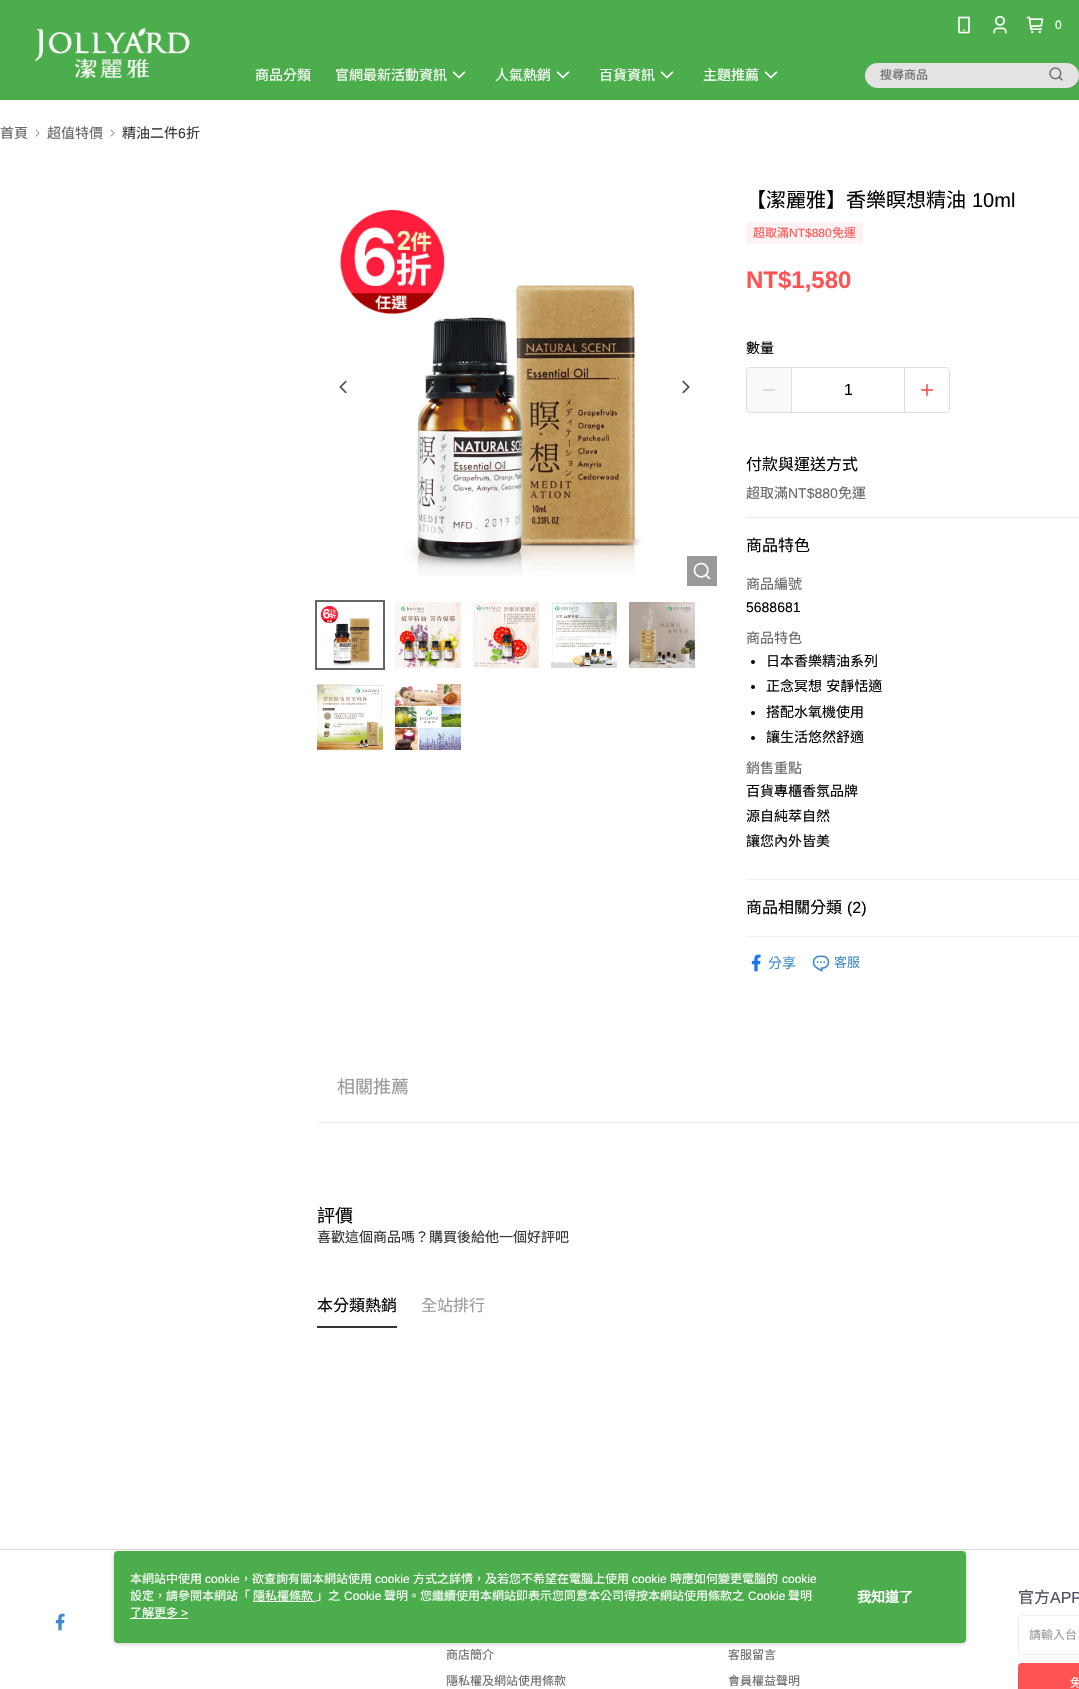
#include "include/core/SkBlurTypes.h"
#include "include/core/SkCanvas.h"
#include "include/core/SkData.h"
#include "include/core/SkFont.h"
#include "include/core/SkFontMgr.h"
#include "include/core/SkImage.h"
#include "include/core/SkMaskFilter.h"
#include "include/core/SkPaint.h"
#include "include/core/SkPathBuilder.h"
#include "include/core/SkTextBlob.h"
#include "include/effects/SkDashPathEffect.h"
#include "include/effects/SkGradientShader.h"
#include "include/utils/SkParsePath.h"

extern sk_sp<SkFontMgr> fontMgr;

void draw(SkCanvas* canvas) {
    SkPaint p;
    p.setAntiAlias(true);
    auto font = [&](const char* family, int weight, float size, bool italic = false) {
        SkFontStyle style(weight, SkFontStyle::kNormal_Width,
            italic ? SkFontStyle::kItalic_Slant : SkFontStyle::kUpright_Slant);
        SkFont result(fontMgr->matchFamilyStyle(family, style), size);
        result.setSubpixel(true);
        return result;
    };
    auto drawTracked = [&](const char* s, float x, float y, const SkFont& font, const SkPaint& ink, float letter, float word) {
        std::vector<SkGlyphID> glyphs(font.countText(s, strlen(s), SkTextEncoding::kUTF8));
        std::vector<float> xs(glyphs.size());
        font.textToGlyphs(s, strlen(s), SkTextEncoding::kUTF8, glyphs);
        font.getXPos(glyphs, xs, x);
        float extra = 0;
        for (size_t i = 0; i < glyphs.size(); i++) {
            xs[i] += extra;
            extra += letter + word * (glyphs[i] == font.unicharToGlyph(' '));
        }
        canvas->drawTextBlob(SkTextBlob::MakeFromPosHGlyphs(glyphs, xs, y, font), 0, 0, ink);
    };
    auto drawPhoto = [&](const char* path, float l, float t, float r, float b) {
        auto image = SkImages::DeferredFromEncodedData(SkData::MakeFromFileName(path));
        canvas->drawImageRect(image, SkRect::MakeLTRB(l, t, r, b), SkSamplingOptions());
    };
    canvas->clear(0xFFFFFFFF);
    p.setColor(0xFF4CAD4C);
    canvas->drawRect(SkRect::MakeLTRB(0, 0, 1079, 100), p);
    drawPhoto("media/1.png", 34, 28, 190, 79);
    drawPhoto("media/2.png", 958, 16, 970, 34);
    drawPhoto("media/3.png", 993, 15, 1007, 34);
    drawPhoto("media/4.png", 1026, 16, 1044, 34);
    auto font1 = font("Liberation Sans", 400, 12);
    p.setColor(0xFFFFFFFF);
    canvas->drawString("0", 1055, 29, font1, p);
    auto font2 = font("Noto Sans CJK TC", 400, 14);
    canvas->drawString("商品分類", 255, 80, font2, p);
    canvas->drawString("官網最新活動資訊", 335, 80, font2, p);
    drawPhoto("media/5.png", 452, 71, 466, 79);
    canvas->drawString("人氣熱銷", 495, 80, font2, p);
    drawPhoto("media/5.png", 556, 71, 570, 79);
    canvas->drawString("百貨資訊", 599, 80, font2, p);
    drawPhoto("media/5.png", 660, 71, 674, 79);
    canvas->drawString("主題推薦", 703, 80, font2, p);
    drawPhoto("media/5.png", 764, 71, 778, 79);
    p.setColor(0xFFE4E2E2);
    canvas->drawRoundRect(SkRect::MakeLTRB(865, 63, 1079, 88), 12.5f, 12.5f, p);
    auto font3 = font("Noto Sans CJK TC", 400, 12);
    p.setColor(0xFF666666);
    canvas->drawString("搜尋商品", 880, 79, font3, p);
    drawPhoto("media/6.png", 1049, 67, 1063, 81);
    canvas->drawString("首頁", 0, 138, font2, p);
    drawPhoto("media/7.png", 35, 129, 40, 137);
    canvas->drawString("超值特價", 47, 138, font2, p);
    drawPhoto("media/7.png", 110, 129, 115, 137);
    p.setColor(0xFF333333);
    canvas->drawString("精油二件", 122, 138, font2, p);
    auto font4 = font("Liberation Sans", 400, 14);
    canvas->drawString("6", 178, 138, font4, p);
    canvas->drawString("折", 186, 138, font2, p);
    drawPhoto("media/8.png", 340, 210, 641, 576);
    p.setColor(0xFF999999);
    canvas->drawRect(SkRect::MakeLTRB(687, 556, 717, 586), p);
    drawPhoto("media/9.png", 693, 562, 711, 580);
    drawPhoto("media/10.png", 339, 380, 347, 394);
    drawPhoto("media/11.png", 682, 380, 690, 394);
    drawPhoto("media/12.png", 320, 605, 370, 666);
    p.setStyle(SkPaint::kStroke_Style);
    p.setStrokeWidth(2);
    p.setColor(0xFF666666);
    canvas->drawRect(SkRect::MakeLTRB(316, 601, 384, 669), p);
    drawPhoto("media/13.png", 395, 602, 461, 668);
    drawPhoto("media/14.png", 473, 602, 539, 668);
    drawPhoto("media/15.png", 551, 602, 617, 668);
    drawPhoto("media/16.png", 629, 602, 695, 668);
    drawPhoto("media/17.png", 317, 684, 383, 750);
    drawPhoto("media/18.png", 395, 684, 461, 750);
    auto font5 = font("Noto Sans CJK TC", 400, 20);
    p.setStyle(SkPaint::kFill_Style);
    p.setColor(0xFF000000);
    canvas->drawString("【潔麗雅】香樂瞑想精油", 746, 207, font5, p);
    auto font6 = font("Liberation Sans", 400, 20);
    canvas->drawString("10ml", 972, 207, font6, p);
    p.setColor(0xFFFFF2F2);
    canvas->drawRoundRect(SkRect::MakeLTRB(746.5f, 222.5f, 862.5f, 243.5f), 1.5f, 1.5f, p);
    p.setStyle(SkPaint::kStroke_Style);
    p.setStrokeWidth(1);
    canvas->drawRoundRect(SkRect::MakeLTRB(746.5f, 222.5f, 862.5f, 243.5f), 1.5f, 1.5f, p);
    p.setStyle(SkPaint::kFill_Style);
    p.setColor(0xFFFF5353);
    canvas->drawString("超取滿", 753, 237, font3, p);
    canvas->drawString("NT$880", 789, 237, font1, p);
    canvas->drawString("免運", 832, 237, font3, p);
    auto font7 = font("Liberation Sans", 700, 24);
    canvas->drawString("NT$1,580", 746, 288, font7, p);
    p.setColor(0xFF000000);
    canvas->drawString("數量", 746, 353, font2, p);
    p.setStyle(SkPaint::kStroke_Style);
    p.setColor(0xFFDDDDDD);
    canvas->drawRoundRect(SkRect::MakeLTRB(746.5f, 367.5f, 949.5f, 412.5f), 3.5f, 3.5f, p);
    p.setStyle(SkPaint::kFill_Style);
    {
        const struct { float l, t, r, b; SkColor color; } items[] = {
            {747, 368, 791, 412, 0x66F1F1F1},
            {763, 389, 775, 391, 0xFFDDDDDD},
            {904, 368, 905, 412, 0xFFDDDDDD},
            {791, 368, 792, 412, 0xFFDDDDDD},
        };
        for (auto [l, t, r, b, color] : items) {
            p.setColor(color);
            canvas->drawRect(SkRect::MakeLTRB(l, t, r, b), p);
        }
    }
    auto font8 = font("Liberation Sans", 400, 16);
    p.setColor(0xFF000000);
    canvas->drawString("1", 844, 395, font8, p);
    drawPhoto("media/19.png", 921, 384, 933, 396);
    p.setColor(0xFFECEFF1);
    canvas->drawRect(SkRect::MakeLTRB(746, 517, 1079, 518), p);
    auto font9 = font("Noto Sans CJK TC", 400, 16);
    p.setColor(0xFF000000);
    canvas->drawString("付款與運送方式", 746, 470, font9, p);
    p.setColor(0xFF666666);
    canvas->drawString("超取滿", 746, 498, font2, p);
    canvas->drawString("NT$880", 788, 498, font4, p);
    canvas->drawString("免運", 838, 498, font2, p);
    p.setColor(0xFFECEFF1);
    canvas->drawRect(SkRect::MakeLTRB(746, 879, 1079, 880), p);
    p.setColor(0xFF000000);
    canvas->drawString("商品特色", 746, 551, font9, p);
    p.setColor(0xFF666666);
    canvas->drawString("商品編號", 746, 589, font2, p);
    p.setColor(0xFF000000);
    canvas->drawString("5688681", 746, 612, font4, p);
    p.setColor(0xFF666666);
    canvas->drawString("商品特色", 746, 643, font2, p);
    p.setColor(0xFF000000);
    canvas->drawCircle(753, 662, 2, p);
    canvas->drawString("日本香樂精油系列", 766, 666, font2, p);
    canvas->drawCircle(753, 687, 2, p);
    drawTracked("正念冥想 安靜恬適", 766, 691, font2, p, 0, 1);
    canvas->drawCircle(753, 713, 2, p);
    canvas->drawString("搭配水氧機使用", 766, 717, font2, p);
    canvas->drawCircle(753, 738, 2, p);
    canvas->drawString("讓生活悠然舒適", 766, 742, font2, p);
    p.setColor(0xFF666666);
    canvas->drawString("銷售重點", 746, 773, font2, p);
    p.setColor(0xFF000000);
    {
        const struct { const char* s; float x, y; } items[] = {
            {"百貨專櫃香氛品牌", 746, 796},
            {"源自純萃自然", 746, 821},
            {"讓您內外皆美", 746, 846},
        };
        for (auto [s, x, y] : items) {
            canvas->drawString(s, x, y, font2, p);
        }
    }
    p.setColor(0xFFECEFF1);
    canvas->drawRect(SkRect::MakeLTRB(746, 936, 1079, 937), p);
    p.setColor(0xFF000000);
    canvas->drawString("商品相關分類", 746, 913, font9, p);
    canvas->drawString("(2)", 847, 913, font8, p);
    drawPhoto("media/20.png", 751, 954, 761, 972);
    p.setColor(0xFF428BCA);
    canvas->drawString("分享", 768, 968, font2, p);
    drawPhoto("media/21.png", 812, 955, 830, 972);
    auto font10 = font("Noto Sans CJK TC", 400, 13);
    canvas->drawString("客服", 834, 967, font10, p);
    p.setColor(0xFFECECEC);
    canvas->drawRect(SkRect::MakeLTRB(317, 1122, 1079, 1123), p);
    auto font11 = font("Noto Sans CJK TC", 400, 18);
    p.setColor(0xFF999999);
    canvas->drawString("相關推薦", 337, 1093, font11, p);
    p.setColor(0xFF000000);
    canvas->drawString("評價", 317, 1222, font11, p);
    p.setColor(0xFF333333);
    canvas->drawString("喜歡這個商品嗎？購買後給他一個好評吧", 317, 1242, font2, p);
    canvas->drawRect(SkRect::MakeLTRB(317, 1326, 397, 1328), p);
    p.setColor(0xFF000000);
    canvas->drawString("本分類熱銷", 317, 1311, font9, p);
    p.setColor(0xFF999999);
    canvas->drawString("全站排行", 421, 1311, font9, p);
    p.setColor(0xFFDADADA);
    canvas->drawRect(SkRect::MakeLTRB(0, 1549, 1079, 1550), p);
    drawPhoto("media/22.png", 55, 1613, 65, 1631);
    p.setColor(0xFF4A4E5C);
    canvas->drawString("官方", 1018, 1603, font9, p);
    canvas->drawString("APP", 1050, 1603, font8, p);
    p.setStyle(SkPaint::kStroke_Style);
    p.setColor(0xFFEDEDED);
    canvas->drawRoundRect(SkRect::MakeLTRB(1018.5f, 1615.5f, 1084.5f, 1654.5f), 4.5f, 4.5f, p);
    p.setStyle(SkPaint::kFill_Style);
    p.setColor(0xFF999999);
    canvas->drawString("請輸入台", 1029, 1639, font3, p);
    p.setColor(0xFFFF5353);
    canvas->drawRoundRect(SkRect::MakeLTRB(1018, 1663, 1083, 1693), 4, 4, p);
    p.setColor(0xFFFFFFFF);
    canvas->drawString("免", 1070, 1687, font3, p);
    p.setColor(0xFF666666);
    {
        const struct { const char* s; float x, y; } items[] = {
            {"商店簡介", 446, 1659},
            {"隱私權及網站使用條款", 446, 1685},
            {"客服留言", 728, 1659},
            {"會員權益聲明", 728, 1685},
        };
        for (auto [s, x, y] : items) {
            canvas->drawString(s, x, y, font3, p);
        }
    }
    p.setColor(0x80979797);
    p.setMaskFilter(SkMaskFilter::MakeBlur(kNormal_SkBlurStyle, 2));
    canvas->drawRoundRect(SkRect::MakeLTRB(114, 1552, 966, 1644), 4, 4, p);
    p.setMaskFilter(nullptr);
    p.setColor(0xFF4CAD4C);
    canvas->drawRoundRect(SkRect::MakeLTRB(114, 1551, 966, 1643), 4, 4, p);
    p.setColor(0xFFFFFFFF);
    canvas->drawString("本網站中使用", 130, 1583, font3, p);
    canvas->drawString("cookie", 205, 1583, font1, p);
    canvas->drawString("，欲查詢有關本網站使用", 240, 1583, font3, p);
    canvas->drawString("cookie", 375, 1583, font1, p);
    canvas->drawString("方式之詳情，及若您不希望在電腦上使用", 413, 1583, font3, p);
    canvas->drawString("cookie", 632, 1583, font1, p);
    canvas->drawString("時應如何變更電腦的", 670, 1583, font3, p);
    canvas->drawString("cookie", 782, 1583, font1, p);
    canvas->drawString("設定，請參閱本網站「", 130, 1600, font3, p);
    canvas->drawString("隱私權條款", 253, 1600, font3, p);
    canvas->drawRect(SkRect::MakeLTRB(253, 1601, 316, 1602), p);
    canvas->drawString("」之", 316, 1600, font3, p);
    canvas->drawString("Cookie", 344, 1600, font1, p);
    canvas->drawString("聲明。您繼續使用本網站即表示您同意本公司得按本網站使用條款之", 384, 1600, font3, p);
    canvas->drawString("Cookie", 748, 1600, font1, p);
    canvas->drawString("聲明", 788, 1600, font3, p);
    canvas->drawString("了解更多", 130, 1617, font3, p);
    canvas->drawString(">", 181, 1617, font1, p);
    canvas->drawRect(SkRect::MakeLTRB(130, 1618, 188, 1619), p);
    auto font12 = font("Noto Sans CJK TC", 700, 14);
    canvas->drawString("我知道了", 857, 1602, font12, p);
}
